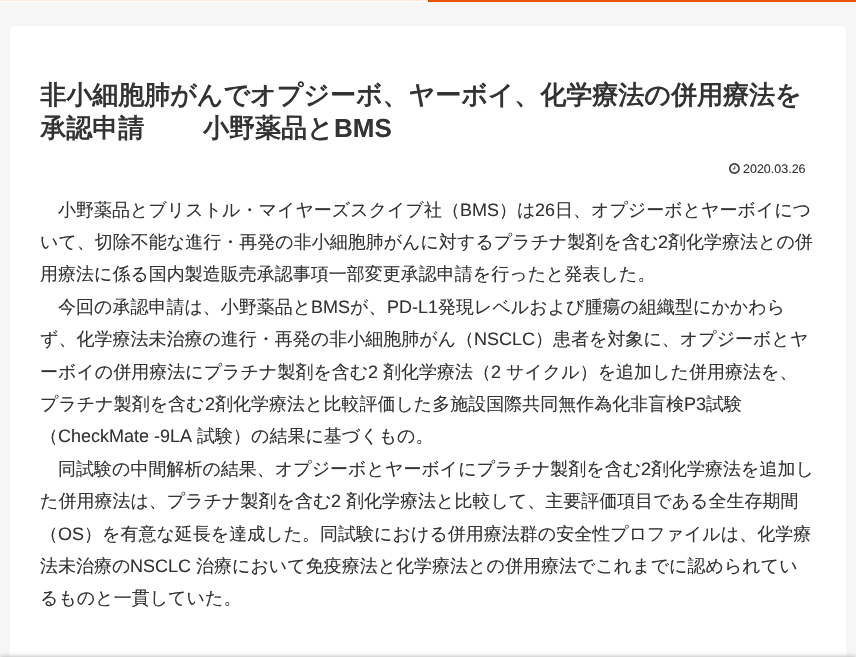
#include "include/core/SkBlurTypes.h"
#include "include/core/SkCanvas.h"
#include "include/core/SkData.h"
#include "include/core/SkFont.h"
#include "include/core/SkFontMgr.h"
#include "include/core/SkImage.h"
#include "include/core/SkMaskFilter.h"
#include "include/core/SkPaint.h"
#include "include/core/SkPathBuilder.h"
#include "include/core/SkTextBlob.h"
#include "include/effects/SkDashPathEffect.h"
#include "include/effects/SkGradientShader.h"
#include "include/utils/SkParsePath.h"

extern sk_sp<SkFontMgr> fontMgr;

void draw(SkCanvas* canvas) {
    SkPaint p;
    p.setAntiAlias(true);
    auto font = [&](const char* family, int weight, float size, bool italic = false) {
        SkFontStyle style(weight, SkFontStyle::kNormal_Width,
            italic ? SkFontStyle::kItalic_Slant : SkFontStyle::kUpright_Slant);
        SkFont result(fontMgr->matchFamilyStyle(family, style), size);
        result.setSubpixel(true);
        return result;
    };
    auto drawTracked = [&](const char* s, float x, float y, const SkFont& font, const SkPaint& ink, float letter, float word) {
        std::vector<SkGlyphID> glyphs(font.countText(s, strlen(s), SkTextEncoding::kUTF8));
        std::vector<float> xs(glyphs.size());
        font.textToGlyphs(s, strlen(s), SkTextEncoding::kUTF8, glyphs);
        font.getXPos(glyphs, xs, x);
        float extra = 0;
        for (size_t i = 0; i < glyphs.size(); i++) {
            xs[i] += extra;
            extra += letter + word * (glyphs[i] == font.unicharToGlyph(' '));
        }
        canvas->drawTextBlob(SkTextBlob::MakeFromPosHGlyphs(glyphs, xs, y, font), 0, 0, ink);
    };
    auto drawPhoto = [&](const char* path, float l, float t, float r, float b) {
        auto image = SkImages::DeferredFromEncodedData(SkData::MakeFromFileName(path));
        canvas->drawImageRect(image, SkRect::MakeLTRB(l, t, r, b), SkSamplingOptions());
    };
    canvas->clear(0xFFF6F6F6);
    {
        const struct { float l, t, r, b; SkColor color; } items[] = {
            {428, 0, 856, 2, 0xFFE95200},
            {427, 0, 428, 2, 0xFFFFFFFF},
            {0, 1, 428, 2, 0xFFFFFFFF},
            {0, 0, 427, 1, 0xFFFFE9DD},
        };
        for (auto [l, t, r, b, color] : items) {
            p.setColor(color);
            canvas->drawRect(SkRect::MakeLTRB(l, t, r, b), p);
        }
    }
    p.setColor(0xFFFFFFFF);
    canvas->drawRoundRect(SkRect::MakeLTRB(10, 26, 846, 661), 4, 4, p);
    auto font1 = font("WenQuanYi Zen Hei", 700, 26);
    p.setColor(0xFF333333);
    canvas->drawString("非小細胞肺がんでオプジーボ、ヤーボイ、化学療法の併用療法を", 40, 104, font1, p);
    drawTracked("承認申請 　　小野薬品と", 40, 137, font1, p, 0, -1);
    auto font2 = font("Liberation Sans", 700, 26);
    canvas->drawString("BMS", 334, 137, font2, p);
    drawPhoto("media/1.png", 729, 163, 740, 174);
    auto font3 = font("Liberation Sans", 400, 12.5f);
    canvas->drawString("2020.03.26", 743, 173, font3, p);
    auto font4 = font("WenQuanYi Zen Hei", 500, 18);
    canvas->drawString("小野薬品とブリストル・マイヤーズスクイブ社（", 58, 216, font4, p);
    auto font5 = font("Liberation Sans", 400, 18);
    canvas->drawString("BMS", 460, 216, font5, p);
    canvas->drawString("）は", 499, 216, font4, p);
    canvas->drawString("26", 535, 216, font5, p);
    canvas->drawString("日、オプジーボとヤーボイにつ", 555, 216, font4, p);
    canvas->drawString("いて、切除不能な進行・再発の非小細胞肺がんに対するプラチナ製剤を含む", 40, 248, font4, p);
    canvas->drawString("2", 658, 248, font5, p);
    {
        const struct { const char* s; float x, y; } items[] = {
            {"剤化学療法との併", 668, 248},
            {"用療法に係る国内製造販売承認事項一部変更承認申請を行ったと発表した。", 40, 280},
            {"今回の承認申請は、小野薬品と", 58, 313},
        };
        for (auto [s, x, y] : items) {
            canvas->drawString(s, x, y, font4, p);
        }
    }
    canvas->drawString("BMS", 311, 313, font5, p);
    canvas->drawString("が、", 350, 313, font4, p);
    canvas->drawString("PD-L1", 387, 313, font5, p);
    canvas->drawString("発現レベルおよび腫瘍の組織型にかかわら", 438, 313, font4, p);
    canvas->drawString("ず、化学療法未治療の進行・再発の非小細胞肺がん（", 40, 345, font4, p);
    canvas->drawString("NSCLC", 474, 345, font5, p);
    canvas->drawString("）患者を対象に、オプジーボとヤ", 535, 345, font4, p);
    canvas->drawString("ーボイの併用療法にプラチナ製剤を含む", 40, 378, font4, p);
    canvas->drawString("2", 368, 378, font5, p);
    canvas->drawString("剤化学療法（", 383, 378, font4, p);
    canvas->drawString("2", 491, 378, font5, p);
    canvas->drawString("サイクル）を追加した併用療法を、", 506, 378, font4, p);
    canvas->drawString("プラチナ製剤を含む", 40, 410, font4, p);
    canvas->drawString("2", 205, 410, font5, p);
    canvas->drawString("剤化学療法と比較評価した多施設国際共同無作為化非盲検", 215, 410, font4, p);
    canvas->drawString("P3", 684, 410, font5, p);
    canvas->drawString("試験", 706, 410, font4, p);
    canvas->drawString("（", 40, 442, font4, p);
    canvas->drawString("CheckMate -9LA", 58, 442, font5, p);
    canvas->drawString("試験）の結果に基づくもの。", 197, 442, font4, p);
    canvas->drawString("同試験の中間解析の結果、オプジーボとヤーボイにプラチナ製剤を含む", 58, 475, font4, p);
    canvas->drawString("2", 641, 475, font5, p);
    canvas->drawString("剤化学療法を追加し", 651, 475, font4, p);
    canvas->drawString("た併用療法は、プラチナ製剤を含む", 40, 507, font4, p);
    canvas->drawString("2", 331, 507, font5, p);
    canvas->drawString("剤化学療法と比較して、主要評価項目である全生存期間", 346, 507, font4, p);
    canvas->drawString("（", 40, 540, font4, p);
    canvas->drawString("OS", 58, 540, font5, p);
    canvas->drawString("）を有意な延長を達成した。同試験における併用療法群の安全性プロファイルは、化学療", 84, 540, font4, p);
    canvas->drawString("法未治療の", 40, 572, font4, p);
    canvas->drawString("NSCLC", 130, 572, font5, p);
    canvas->drawString("治療において免疫療法と化学療法との併用療法でこれまでに認められてい", 196, 572, font4, p);
    canvas->drawString("るものと一貫していた。", 40, 604, font4, p);
    p.setColor(0xFFA9A9A9);
    p.setMaskFilter(SkMaskFilter::MakeBlur(kNormal_SkBlurStyle, 2.5f));
    canvas->drawRect(SkRect::MakeLTRB(0, 657, 856, 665), p);
    p.setMaskFilter(nullptr);
}
